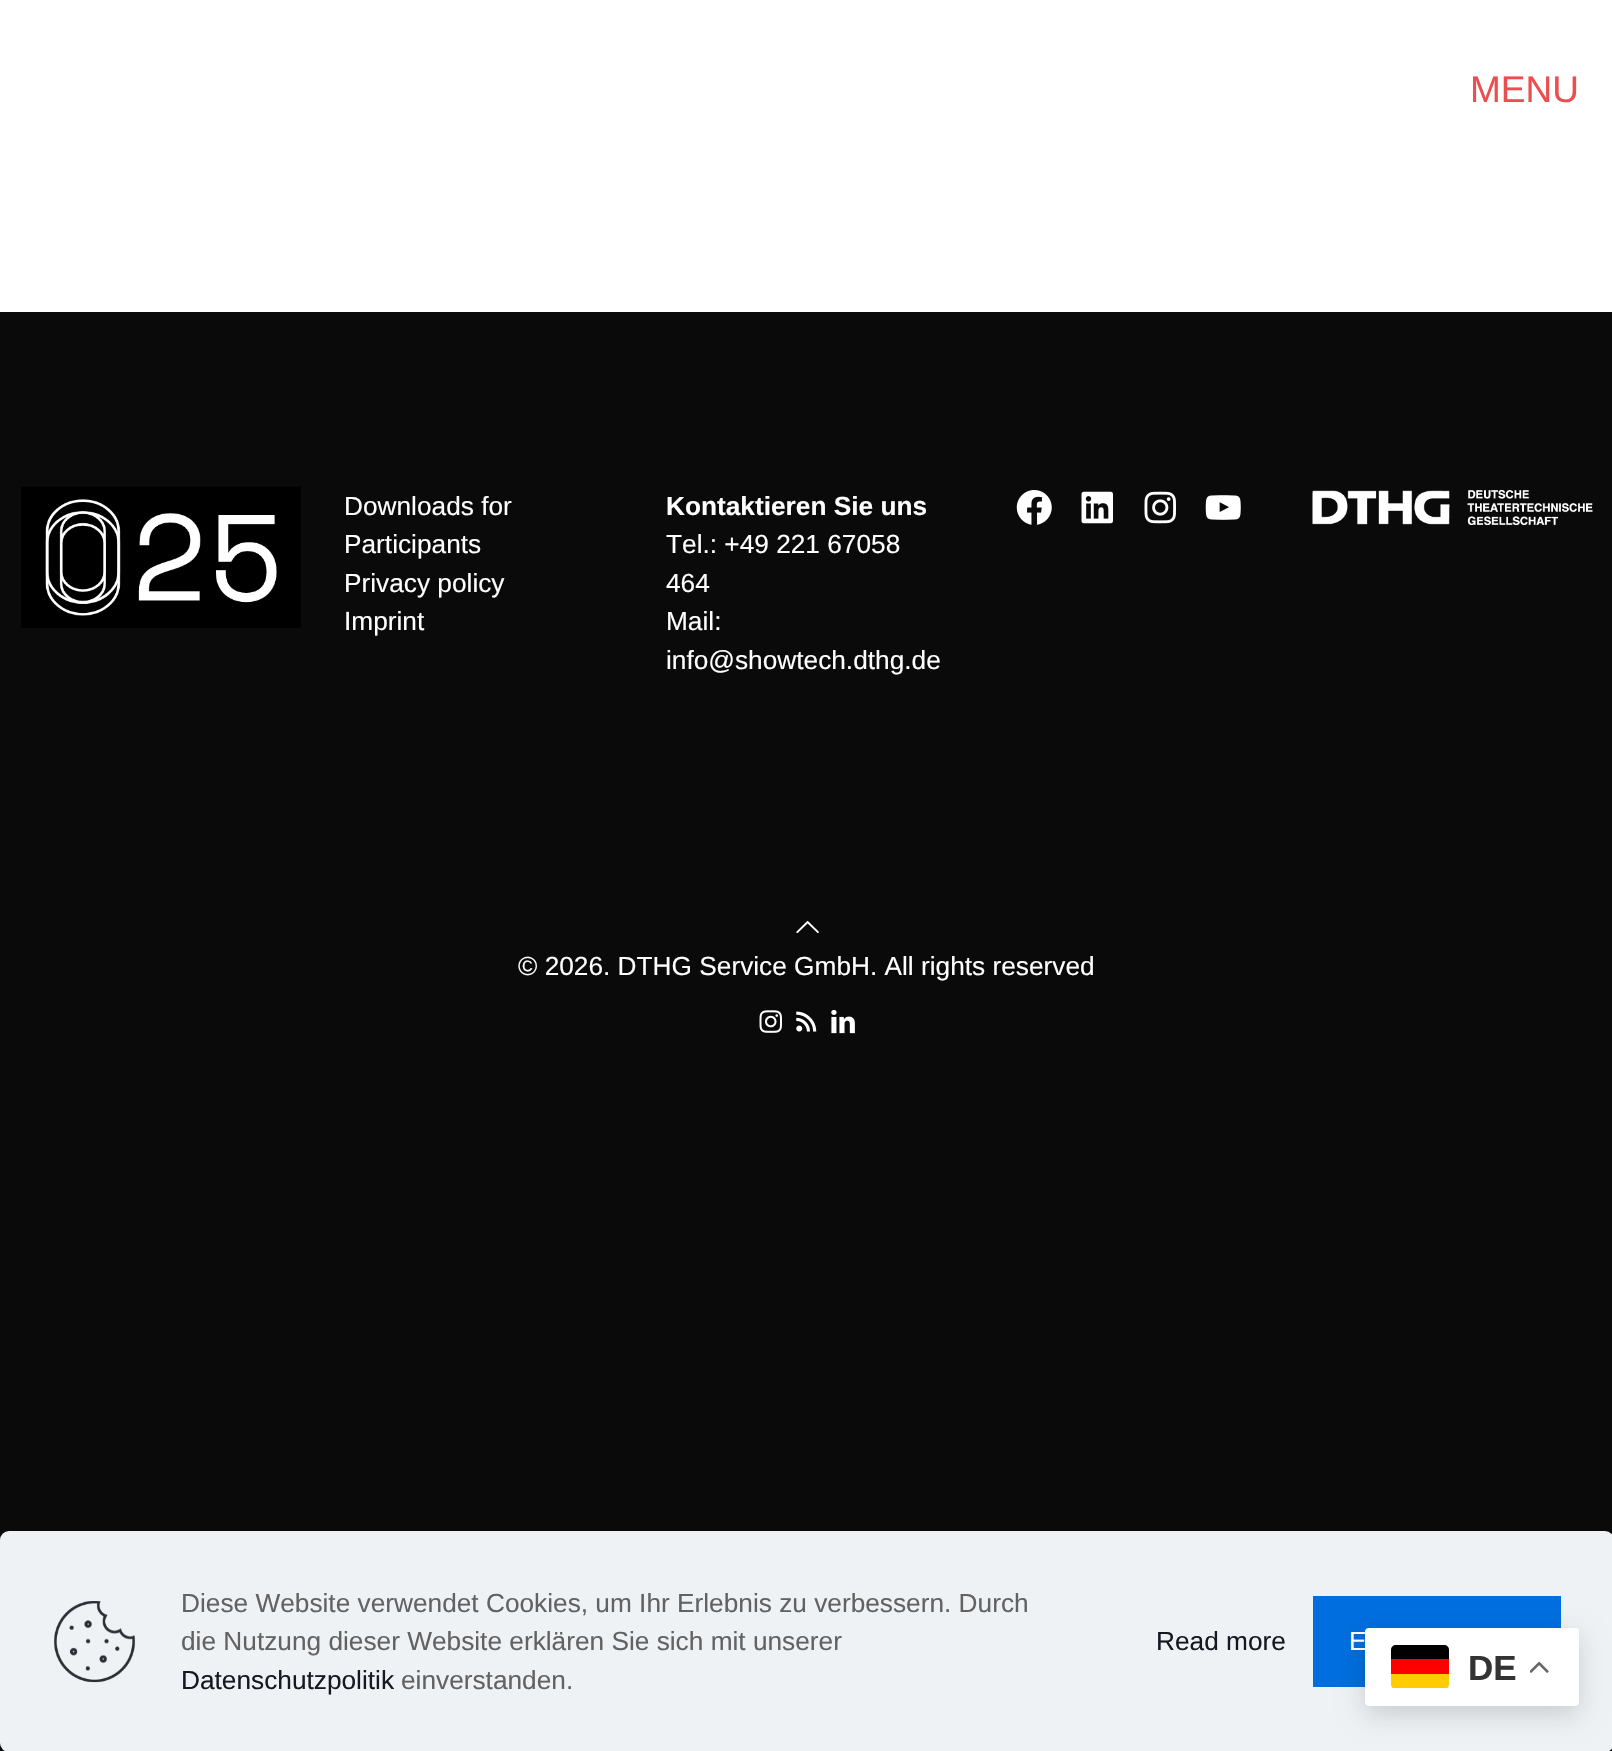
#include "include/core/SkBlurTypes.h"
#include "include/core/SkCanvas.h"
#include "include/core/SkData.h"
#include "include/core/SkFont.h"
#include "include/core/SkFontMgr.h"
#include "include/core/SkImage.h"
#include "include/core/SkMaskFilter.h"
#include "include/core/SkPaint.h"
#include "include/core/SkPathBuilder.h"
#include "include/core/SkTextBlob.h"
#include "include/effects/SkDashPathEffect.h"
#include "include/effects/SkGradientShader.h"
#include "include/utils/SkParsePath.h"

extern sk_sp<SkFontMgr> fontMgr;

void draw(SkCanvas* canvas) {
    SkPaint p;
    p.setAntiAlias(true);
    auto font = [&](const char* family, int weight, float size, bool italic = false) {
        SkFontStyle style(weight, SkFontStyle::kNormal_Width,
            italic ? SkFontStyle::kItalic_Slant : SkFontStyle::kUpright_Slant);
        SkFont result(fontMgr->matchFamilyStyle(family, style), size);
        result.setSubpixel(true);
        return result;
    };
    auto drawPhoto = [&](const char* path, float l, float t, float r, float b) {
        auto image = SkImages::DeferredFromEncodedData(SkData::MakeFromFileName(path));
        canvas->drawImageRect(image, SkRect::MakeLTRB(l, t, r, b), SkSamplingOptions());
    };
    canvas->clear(0xFF0A0A0A);
    p.setColor(0xFFFFFFFF);
    canvas->drawRect(SkRect::MakeLTRB(0, 0, 1612, 312), p);
    auto font1 = font("Liberation Sans", 400, 37);
    p.setColor(0xFFEB4E4E);
    canvas->drawString("MENU", 1470, 102, font1, p);
    drawPhoto("media/1.png", 21, 486, 301, 628);
    auto font2 = font("Liberation Sans", 400, 26.25f);
    p.setColor(0xFFFFFFFF);
    {
        const struct { const char* s; float x, y; } items[] = {
            {"Downloads for", 344, 515},
            {"Participants", 344, 553},
            {"Privacy policy", 344, 592},
            {"Imprint", 344, 630},
        };
        for (auto [s, x, y] : items) {
            canvas->drawString(s, x, y, font2, p);
        }
    }
    auto font3 = font("Liberation Sans", 700, 26.25f);
    canvas->drawString("Kontaktieren Sie uns", 666, 515, font3, p);
    {
        const struct { const char* s; float x, y; } items[] = {
            {"Tel.: +49 221 67058", 666, 553},
            {"464", 666, 592},
            {"Mail:", 666, 630},
            {"info@showtech.dthg.de", 666, 669},
        };
        for (auto [s, x, y] : items) {
            canvas->drawString(s, x, y, font2, p);
        }
    }
    drawPhoto("media/2.png", 1016, 490, 1052, 525);
    drawPhoto("media/3.png", 1081, 491, 1113, 524);
    drawPhoto("media/4.png", 1144, 491, 1176, 524);
    drawPhoto("media/5.png", 1205, 495, 1241, 520);
    drawPhoto("media/6.png", 1312, 490, 1593, 525);
    drawPhoto("media/7.png", 796, 921, 819, 934);
    canvas->drawString("© 2026. DTHG Service GmbH. All rights reserved", 518, 975, font2, p);
    drawPhoto("media/8.png", 759, 1010, 782, 1033);
    drawPhoto("media/9.png", 796, 1011, 817, 1032);
    drawPhoto("media/10.png", 831, 1009, 855, 1034);
    p.setColor(0xFFEEF2F5);
    canvas->drawRoundRect(SkRect::MakeLTRB(0, 1531, 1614, 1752), 9, 9, p);
    drawPhoto("media/11.png", 54, 1601, 136, 1683);
    p.setColor(0xFF626262);
    canvas->drawString("Diese Website verwendet Cookies, um Ihr Erlebnis zu verbessern. Durch", 181, 1612, font2, p);
    canvas->drawString("die Nutzung dieser Website erklären Sie sich mit unserer", 181, 1650, font2, p);
    p.setColor(0xFF161922);
    canvas->drawString("Datenschutzpolitik", 181, 1689, font2, p);
    p.setColor(0xFF626262);
    canvas->drawString("einverstanden.", 401, 1689, font2, p);
    p.setColor(0xFF161922);
    canvas->drawString("Read more", 1156, 1650, font2, p);
    p.setColor(0xFF006EDF);
    canvas->drawRect(SkRect::MakeLTRB(1313, 1596, 1561, 1687), p);
    p.setColor(0xFFFFFFFF);
    canvas->drawString("E", 1349, 1650, font2, p);
    p.setColor(0x26000000);
    p.setMaskFilter(SkMaskFilter::MakeBlur(kNormal_SkBlurStyle, 13));
    canvas->drawRoundRect(SkRect::MakeLTRB(1365, 1636, 1579, 1715), 4, 4, p);
    p.setMaskFilter(nullptr);
    p.setColor(0xFFFFFFFF);
    canvas->drawRoundRect(SkRect::MakeLTRB(1365, 1628, 1579, 1706), 4, 4, p);
    canvas->save();
    canvas->clipPath(SkPathBuilder().moveTo(1396, 1645).lineTo(1444, 1645).cubicTo(1447, 1645, 1449, 1647, 1449, 1650).lineTo(1449, 1684).cubicTo(1449, 1687, 1447, 1689, 1444, 1689).lineTo(1396, 1689).cubicTo(1393, 1689, 1391, 1687, 1391, 1684).lineTo(1391, 1650).cubicTo(1391, 1647, 1393, 1645, 1396, 1645).close().detach(), true);
    p.setColor(0xFFFFCC00);
    canvas->drawRect(SkRect::MakeLTRB(1391, 1674, 1449, 1688), p);
    canvas->restore();
    p.setColor(0xFF000000);
    canvas->drawPath(SkPathBuilder().moveTo(1396, 1645).lineTo(1444, 1645).cubicTo(1447, 1645, 1449, 1647, 1449, 1650).lineTo(1449, 1659).lineTo(1391, 1659).lineTo(1391, 1650).cubicTo(1391, 1647, 1393, 1645, 1396, 1645).close().detach(), p);
    p.setColor(0xFFFF0000);
    canvas->drawRect(SkRect::MakeLTRB(1391, 1659, 1449, 1674), p);
    auto font4 = font("Liberation Sans", 700, 35);
    p.setColor(0xFF333333);
    canvas->drawString("DE", 1468, 1680, font4, p);
    drawPhoto("media/12.png", 1530, 1661, 1549, 1673);
}
